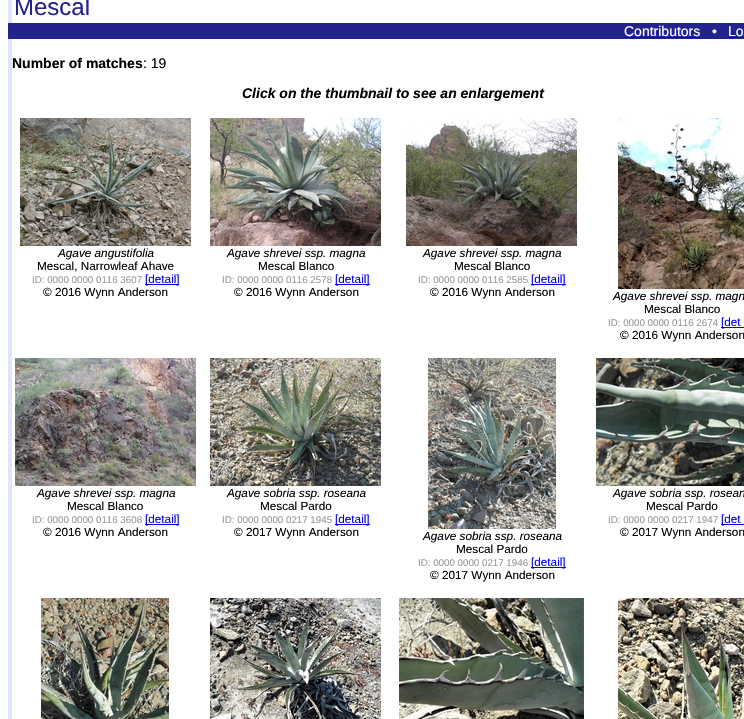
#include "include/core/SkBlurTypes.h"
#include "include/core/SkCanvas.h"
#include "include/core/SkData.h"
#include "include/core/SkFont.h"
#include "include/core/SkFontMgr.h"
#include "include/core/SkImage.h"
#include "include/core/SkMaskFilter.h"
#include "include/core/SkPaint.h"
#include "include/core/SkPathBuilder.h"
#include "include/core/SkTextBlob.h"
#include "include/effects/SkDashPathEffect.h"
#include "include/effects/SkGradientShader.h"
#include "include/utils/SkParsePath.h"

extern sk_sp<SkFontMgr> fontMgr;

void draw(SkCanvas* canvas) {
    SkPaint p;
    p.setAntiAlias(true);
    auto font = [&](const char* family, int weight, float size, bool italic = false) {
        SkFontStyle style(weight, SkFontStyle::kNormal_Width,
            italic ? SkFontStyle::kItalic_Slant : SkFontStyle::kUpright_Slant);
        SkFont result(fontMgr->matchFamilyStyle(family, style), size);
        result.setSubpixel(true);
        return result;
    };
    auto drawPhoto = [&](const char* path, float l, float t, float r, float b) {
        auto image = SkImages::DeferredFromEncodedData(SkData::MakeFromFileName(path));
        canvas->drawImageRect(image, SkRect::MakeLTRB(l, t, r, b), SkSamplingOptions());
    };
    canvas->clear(0xFFFFFFFF);
    p.setColor(0xFFDFE5FA);
    canvas->drawRect(SkRect::MakeLTRB(8, 0, 12, 23), p);
    auto font1 = font("Liberation Sans", 400, 24);
    p.setColor(0xFF23238E);
    canvas->drawString("Mescal", 14, 15, font1, p);
    canvas->drawRect(SkRect::MakeLTRB(8, 23, 744, 39), p);
    auto font2 = font("Liberation Sans", 400, 14);
    p.setColor(0xFFFFFFFF);
    canvas->drawString("Contributors", 624, 36, font2, p);
    p.setColor(0xFF0000EE);
    canvas->drawRect(SkRect::MakeLTRB(624, 37, 700, 38), p);
    p.setColor(0xFFFFFFFF);
    canvas->drawString("•", 712, 36, font2, p);
    canvas->drawString("Lo", 728, 36, font2, p);
    p.setColor(0xFF0000EE);
    canvas->drawRect(SkRect::MakeLTRB(728, 37, 744, 38), p);
    p.setColor(0xFFDFE5FA);
    canvas->drawRect(SkRect::MakeLTRB(8, 39, 12, 719), p);
    auto font3 = font("Liberation Sans", 700, 14);
    p.setColor(0xFF000000);
    canvas->drawString("Number of matches", 12, 68, font3, p);
    canvas->drawString(": 19", 143, 68, font2, p);
    auto font4 = font("Liberation Sans", 700, 14, true);
    canvas->drawString("Click on the thumbnail to see an enlargement", 242, 98, font4, p);
    drawPhoto("media/1.png", 20, 118, 191, 246);
    auto font5 = font("Liberation Sans", 400, 11.75f, true);
    canvas->drawString("Agave angustifolia", 58, 257, font5, p);
    auto font6 = font("Liberation Sans", 400, 11.75f);
    canvas->drawString("Mescal, Narrowleaf Ahave", 37, 270, font6, p);
    auto font7 = font("Liberation Sans", 400, 9.75f);
    p.setColor(0xFF999999);
    canvas->drawString("ID: 0000 0000 0116 3607", 32, 283, font7, p);
    p.setColor(0xFF0000EE);
    canvas->drawRect(SkRect::MakeLTRB(145, 284, 179, 285), p);
    canvas->drawString("[detail]", 145, 283, font6, p);
    p.setColor(0xFF000000);
    canvas->drawString("© 2016 Wynn Anderson", 43, 296, font6, p);
    drawPhoto("media/2.png", 210, 118, 381, 246);
    canvas->drawString("Agave shrevei ssp. magna", 227, 257, font5, p);
    canvas->drawString("Mescal Blanco", 258, 270, font6, p);
    p.setColor(0xFF999999);
    canvas->drawString("ID: 0000 0000 0116 2578", 222, 283, font7, p);
    p.setColor(0xFF0000EE);
    canvas->drawRect(SkRect::MakeLTRB(335, 284, 370, 285), p);
    canvas->drawString("[detail]", 335, 283, font6, p);
    p.setColor(0xFF000000);
    canvas->drawString("© 2016 Wynn Anderson", 234, 296, font6, p);
    drawPhoto("media/3.png", 406, 118, 577, 246);
    canvas->drawString("Agave shrevei ssp. magna", 423, 257, font5, p);
    canvas->drawString("Mescal Blanco", 454, 270, font6, p);
    p.setColor(0xFF999999);
    canvas->drawString("ID: 0000 0000 0116 2585", 418, 283, font7, p);
    p.setColor(0xFF0000EE);
    canvas->drawRect(SkRect::MakeLTRB(531, 284, 566, 285), p);
    canvas->drawString("[detail]", 531, 283, font6, p);
    p.setColor(0xFF000000);
    canvas->drawString("© 2016 Wynn Anderson", 430, 296, font6, p);
    drawPhoto("media/4.png", 618, 118, 744, 289);
    canvas->drawString("Agave shrevei ssp. magn", 613, 300, font5, p);
    canvas->drawString("Mescal Blanco", 644, 313, font6, p);
    p.setColor(0xFF999999);
    canvas->drawString("ID: 0000 0000 0116 2674", 608, 326, font7, p);
    p.setColor(0xFF0000EE);
    canvas->drawRect(SkRect::MakeLTRB(721, 327, 744, 328), p);
    canvas->drawString("[det", 721, 326, font6, p);
    p.setColor(0xFF000000);
    canvas->drawString("© 2016 Wynn Anderson", 620, 339, font6, p);
    drawPhoto("media/5.png", 15, 358, 196, 486);
    canvas->drawString("Agave shrevei ssp. magna", 37, 497, font5, p);
    canvas->drawString("Mescal Blanco", 67, 510, font6, p);
    p.setColor(0xFF999999);
    canvas->drawString("ID: 0000 0000 0116 3608", 32, 523, font7, p);
    p.setColor(0xFF0000EE);
    canvas->drawRect(SkRect::MakeLTRB(145, 524, 179, 525), p);
    canvas->drawString("[detail]", 145, 523, font6, p);
    p.setColor(0xFF000000);
    canvas->drawString("© 2016 Wynn Anderson", 43, 536, font6, p);
    drawPhoto("media/6.png", 210, 358, 381, 486);
    canvas->drawString("Agave sobria ssp. roseana", 227, 497, font5, p);
    canvas->drawString("Mescal Pardo", 260, 510, font6, p);
    p.setColor(0xFF999999);
    canvas->drawString("ID: 0000 0000 0217 1945", 222, 523, font7, p);
    p.setColor(0xFF0000EE);
    canvas->drawRect(SkRect::MakeLTRB(335, 524, 370, 525), p);
    canvas->drawString("[detail]", 335, 523, font6, p);
    p.setColor(0xFF000000);
    canvas->drawString("© 2017 Wynn Anderson", 234, 536, font6, p);
    drawPhoto("media/7.png", 596, 358, 744, 486);
    canvas->drawString("Agave sobria ssp. rosean", 613, 497, font5, p);
    canvas->drawString("Mescal Pardo", 646, 510, font6, p);
    p.setColor(0xFF999999);
    canvas->drawString("ID: 0000 0000 0217 1947", 608, 523, font7, p);
    p.setColor(0xFF0000EE);
    canvas->drawRect(SkRect::MakeLTRB(721, 524, 744, 525), p);
    canvas->drawString("[det", 721, 523, font6, p);
    p.setColor(0xFF000000);
    canvas->drawString("© 2017 Wynn Anderson", 620, 536, font6, p);
    drawPhoto("media/8.png", 428, 358, 556, 529);
    canvas->drawString("Agave sobria ssp. roseana", 423, 540, font5, p);
    canvas->drawString("Mescal Pardo", 456, 553, font6, p);
    p.setColor(0xFF999999);
    canvas->drawString("ID: 0000 0000 0217 1946", 418, 566, font7, p);
    p.setColor(0xFF0000EE);
    canvas->drawRect(SkRect::MakeLTRB(531, 567, 566, 568), p);
    canvas->drawString("[detail]", 531, 566, font6, p);
    p.setColor(0xFF000000);
    canvas->drawString("© 2017 Wynn Anderson", 430, 579, font6, p);
    drawPhoto("media/9.png", 41, 598, 169, 719);
    drawPhoto("media/10.png", 210, 598, 381, 719);
    drawPhoto("media/11.png", 399, 598, 584, 719);
    drawPhoto("media/12.png", 618, 598, 744, 719);
}
